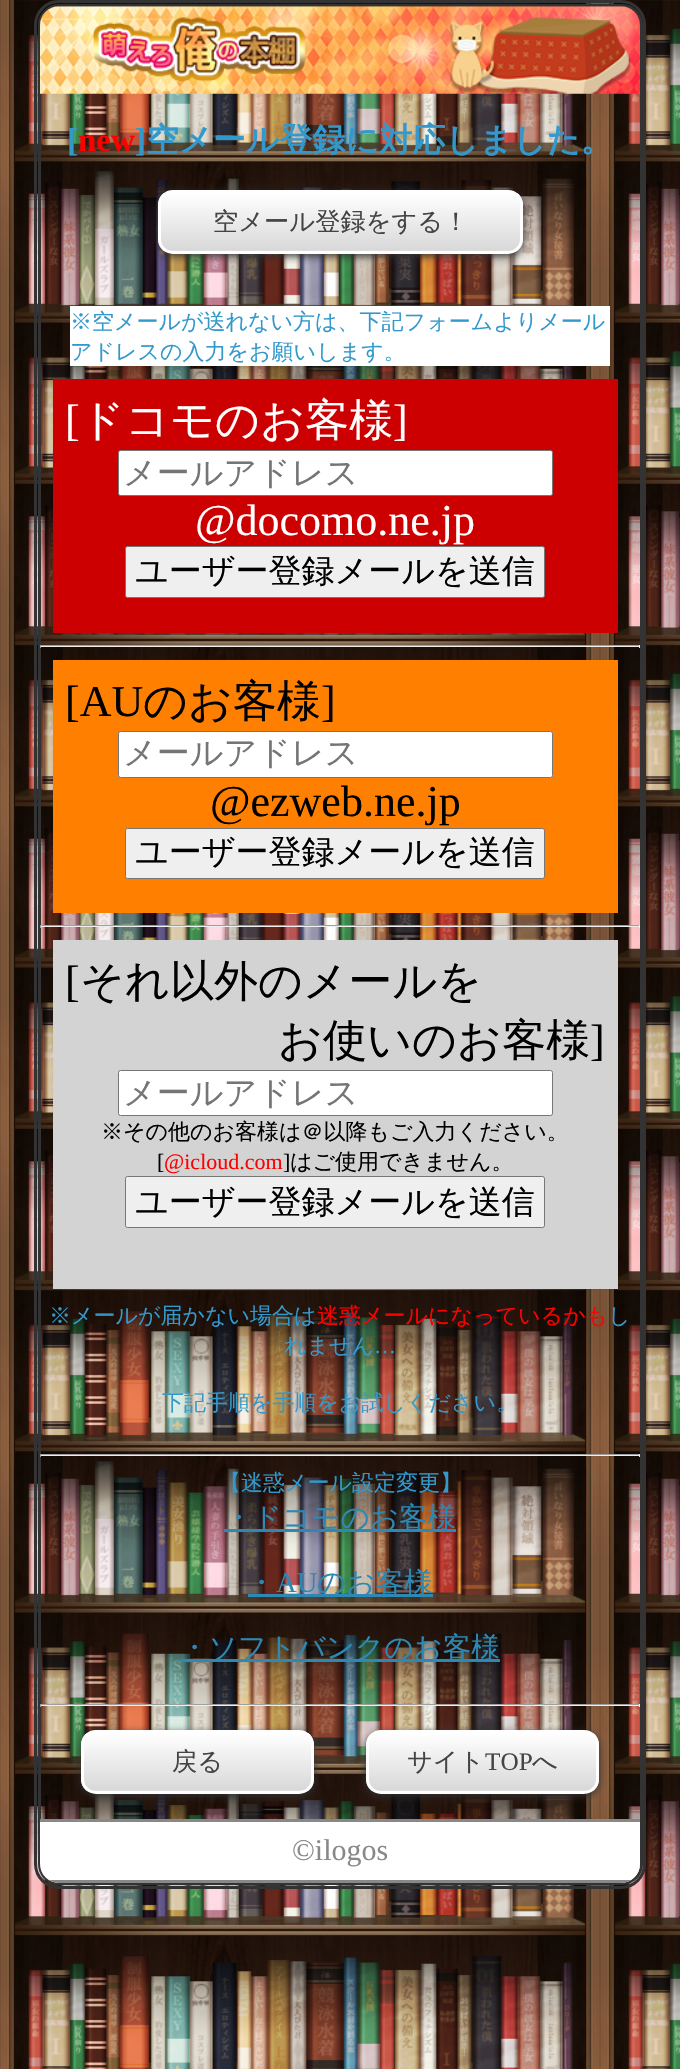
#include "include/core/SkBlurTypes.h"
#include "include/core/SkCanvas.h"
#include "include/core/SkData.h"
#include "include/core/SkFont.h"
#include "include/core/SkFontMgr.h"
#include "include/core/SkImage.h"
#include "include/core/SkMaskFilter.h"
#include "include/core/SkPaint.h"
#include "include/core/SkPathBuilder.h"
#include "include/core/SkTextBlob.h"
#include "include/effects/SkDashPathEffect.h"
#include "include/effects/SkGradientShader.h"
#include "include/utils/SkParsePath.h"

extern sk_sp<SkFontMgr> fontMgr;

void draw(SkCanvas* canvas) {
    SkPaint p;
    p.setAntiAlias(true);
    auto font = [&](const char* family, int weight, float size, bool italic = false) {
        SkFontStyle style(weight, SkFontStyle::kNormal_Width,
            italic ? SkFontStyle::kItalic_Slant : SkFontStyle::kUpright_Slant);
        SkFont result(fontMgr->matchFamilyStyle(family, style), size);
        result.setSubpixel(true);
        return result;
    };
    auto drawPhoto = [&](const char* path, float l, float t, float r, float b) {
        auto image = SkImages::DeferredFromEncodedData(SkData::MakeFromFileName(path));
        canvas->drawImageRect(image, SkRect::MakeLTRB(l, t, r, b), SkSamplingOptions());
    };
    canvas->clear(0xFFFFFFFF);
    drawPhoto("media/1.png", 0, 0, 680, 2069);
    p.setStyle(SkPaint::kStroke_Style);
    p.setStrokeWidth(3);
    p.setColor(0xFF333333);
    canvas->drawRoundRect(SkRect::MakeLTRB(35.5f, 1.5f, 644.5f, 1887.5f), 23.5f, 23.5f, p);
    canvas->drawRoundRect(SkRect::MakeLTRB(39.5f, 5.5f, 641.5f, 1883.5f), 19.5f, 19.5f, p);
    drawPhoto("media/2.png", 40, 6, 640, 94);
    auto font1 = font("Liberation Serif", 700, 33);
    p.setStyle(SkPaint::kFill_Style);
    p.setColor(0xFF3399CC);
    canvas->drawString("[", 67, 151, font1, p);
    p.setColor(0xFFFF0000);
    canvas->drawString("new", 78, 151, font1, p);
    p.setColor(0xFF3399CC);
    canvas->drawString("]", 135, 151, font1, p);
    auto font2 = font("WenQuanYi Zen Hei", 700, 33);
    canvas->drawString("空メール登録に対応しました。", 146, 151, font2, p);
    p.setColor(0xFF333333);
    p.setMaskFilter(SkMaskFilter::MakeBlur(kNormal_SkBlurStyle, 4));
    canvas->drawRoundRect(SkRect::MakeLTRB(158, 193, 523, 256), 15, 15, p);
    p.setMaskFilter(nullptr);
    canvas->save();
    canvas->clipPath(SkPathBuilder().moveTo(173, 190).lineTo(508, 190).cubicTo(516.5f, 190, 523, 196.5f, 523, 205).lineTo(523, 239).cubicTo(523, 247.5f, 516.5f, 254, 508, 254).lineTo(173, 254).cubicTo(164.5f, 254, 158, 247.5f, 158, 239).lineTo(158, 205).cubicTo(158, 196.5f, 164.5f, 190, 173, 190).close().detach(), true);
    {
        const SkColor colors[] = {0xFFFFFFFF, 0xFFD8D8D8, 0xFFFFFFFF};
        const float stops[] = {0, 0.99f, 1};
        const SkPoint ends[] = {{160, 193}, {160, 251}};
        p.setShader(SkGradientShader::MakeLinear(ends, colors, stops, 3, SkTileMode::kClamp));
        p.setAlpha(255);
    }
    canvas->drawRect(SkRect::MakeLTRB(158, 193, 523, 251), p);
    canvas->restore();
    p.setStyle(SkPaint::kStroke_Style);
    p.setShader(nullptr);
    p.setColor(0xFFFFFFFF);
    canvas->drawRoundRect(SkRect::MakeLTRB(159.5f, 191.5f, 521.5f, 252.5f), 13.5f, 13.5f, p);
    auto font3 = font("WenQuanYi Zen Hei", 500, 25.25f);
    p.setStyle(SkPaint::kFill_Style);
    p.setColor(0xFF444444);
    canvas->drawString("空メール登録をする！", 213, 230, font3, p);
    p.setColor(0xFFFFFFFF);
    canvas->drawRect(SkRect::MakeLTRB(70, 306, 610, 366), p);
    auto font4 = font("WenQuanYi Zen Hei", 500, 22);
    p.setColor(0xFF3399CC);
    canvas->drawString("※空メールが送れない方は、下記フォームよりメール", 70, 329, font4, p);
    canvas->drawString("アドレスの入力をお願いします。", 70, 359, font4, p);
    p.setColor(0xFFCC0000);
    canvas->drawRect(SkRect::MakeLTRB(53, 379, 618, 633), p);
    auto font5 = font("Liberation Serif", 400, 44);
    p.setColor(0xFFFFFFFF);
    canvas->drawString("[", 65, 435, font5, p);
    auto font6 = font("WenQuanYi Zen Hei", 500, 44);
    canvas->drawString("ドコモのお客様", 80, 435, font6, p);
    canvas->drawString("]", 393, 435, font5, p);
    canvas->drawRoundRect(SkRect::MakeLTRB(118.5f, 450.5f, 552.5f, 495.5f), 2, 2, p);
    p.setStyle(SkPaint::kStroke_Style);
    p.setStrokeWidth(1);
    p.setColor(0xFF767676);
    canvas->drawRoundRect(SkRect::MakeLTRB(118.5f, 450.5f, 552.5f, 495.5f), 2, 2, p);
    auto font7 = font("WenQuanYi Zen Hei", 500, 33);
    p.setStyle(SkPaint::kFill_Style);
    p.setColor(0xFF757575);
    canvas->drawString("メールアドレス", 123, 484, font7, p);
    p.setColor(0xFFFFFFFF);
    canvas->drawString("@docomo.ne.jp", 195, 535, font5, p);
    p.setColor(0xFFEFEFEF);
    canvas->drawRoundRect(SkRect::MakeLTRB(125.5f, 546.5f, 544.5f, 597.5f), 2, 2, p);
    p.setStyle(SkPaint::kStroke_Style);
    p.setColor(0xFF767676);
    canvas->drawRoundRect(SkRect::MakeLTRB(125.5f, 546.5f, 544.5f, 597.5f), 2, 2, p);
    p.setStyle(SkPaint::kFill_Style);
    p.setColor(0xFF000000);
    canvas->drawString("ユーザー登録メールを送信", 135, 582, font7, p);
    {
        const struct { float l, t, r, b; SkColor color; } items[] = {
            {40, 645, 640, 646, 0xFF9F9F9F},
            {639, 645, 640, 648, 0xFFEEEEEE},
            {40, 646, 640, 647, 0xFFEEEEEE},
            {40, 645, 41, 648, 0xFF9F9F9F},
            {53, 660, 618, 913, 0xFFFF8000},
        };
        for (auto [l, t, r, b, color] : items) {
            p.setColor(color);
            canvas->drawRect(SkRect::MakeLTRB(l, t, r, b), p);
        }
    }
    p.setColor(0xFF000000);
    canvas->drawString("[AU", 65, 716, font5, p);
    canvas->drawString("のお客様", 143, 716, font6, p);
    canvas->drawString("]", 321, 716, font5, p);
    p.setColor(0xFFFFFFFF);
    canvas->drawRoundRect(SkRect::MakeLTRB(118.5f, 731.5f, 552.5f, 777.5f), 2, 2, p);
    p.setStyle(SkPaint::kStroke_Style);
    p.setColor(0xFF767676);
    canvas->drawRoundRect(SkRect::MakeLTRB(118.5f, 731.5f, 552.5f, 777.5f), 2, 2, p);
    p.setStyle(SkPaint::kFill_Style);
    p.setColor(0xFF757575);
    canvas->drawString("メールアドレス", 123, 764, font7, p);
    p.setColor(0xFF000000);
    canvas->drawString("@ezweb.ne.jp", 210, 816, font5, p);
    p.setColor(0xFFEFEFEF);
    canvas->drawRoundRect(SkRect::MakeLTRB(125.5f, 828.5f, 544.5f, 878.5f), 2, 2, p);
    p.setStyle(SkPaint::kStroke_Style);
    p.setColor(0xFF767676);
    canvas->drawRoundRect(SkRect::MakeLTRB(125.5f, 828.5f, 544.5f, 878.5f), 2, 2, p);
    p.setStyle(SkPaint::kFill_Style);
    p.setColor(0xFF000000);
    canvas->drawString("ユーザー登録メールを送信", 135, 863, font7, p);
    {
        const struct { float l, t, r, b; SkColor color; } items[] = {
            {40, 925, 640, 926, 0xFF9F9F9F},
            {639, 925, 640, 928, 0xFFEEEEEE},
            {40, 926, 640, 927, 0xFFEEEEEE},
            {40, 925, 41, 928, 0xFF9F9F9F},
            {53, 940, 618, 1289, 0xFFD3D3D3},
        };
        for (auto [l, t, r, b, color] : items) {
            p.setColor(color);
            canvas->drawRect(SkRect::MakeLTRB(l, t, r, b), p);
        }
    }
    p.setColor(0xFF000000);
    canvas->drawString("[", 65, 996, font5, p);
    canvas->drawString("それ以外のメールを", 80, 996, font6, p);
    canvas->drawString("お使いのお客様", 278, 1055, font6, p);
    canvas->drawString("]", 590, 1055, font5, p);
    p.setColor(0xFFFFFFFF);
    canvas->drawRoundRect(SkRect::MakeLTRB(118.5f, 1070.5f, 552.5f, 1115.5f), 2, 2, p);
    p.setStyle(SkPaint::kStroke_Style);
    p.setColor(0xFF767676);
    canvas->drawRoundRect(SkRect::MakeLTRB(118.5f, 1070.5f, 552.5f, 1115.5f), 2, 2, p);
    p.setStyle(SkPaint::kFill_Style);
    p.setColor(0xFF757575);
    canvas->drawString("メールアドレス", 123, 1104, font7, p);
    p.setColor(0xFF000000);
    canvas->drawString("※その他のお客様は＠以降もご入力ください。", 101, 1139, font4, p);
    auto font8 = font("Liberation Serif", 400, 22);
    canvas->drawString("[", 157, 1169, font8, p);
    p.setColor(0xFFFF0000);
    canvas->drawString("@icloud.com", 164, 1169, font8, p);
    p.setColor(0xFF000000);
    canvas->drawString("]", 283, 1169, font8, p);
    canvas->drawString("はご使用できません。", 290, 1169, font4, p);
    p.setColor(0xFFEFEFEF);
    canvas->drawRoundRect(SkRect::MakeLTRB(125.5f, 1176.5f, 544.5f, 1227.5f), 2, 2, p);
    p.setStyle(SkPaint::kStroke_Style);
    p.setColor(0xFF767676);
    canvas->drawRoundRect(SkRect::MakeLTRB(125.5f, 1176.5f, 544.5f, 1227.5f), 2, 2, p);
    p.setStyle(SkPaint::kFill_Style);
    p.setColor(0xFF000000);
    canvas->drawString("ユーザー登録メールを送信", 135, 1213, font7, p);
    p.setColor(0xFF3399CC);
    canvas->drawString("※メールが届かない場合は", 49, 1323, font4, p);
    p.setColor(0xFFFF0000);
    canvas->drawString("迷惑メールになっているかも", 317, 1323, font4, p);
    p.setColor(0xFF3399CC);
    canvas->drawString("し", 608, 1323, font4, p);
    canvas->drawString("れません", 284, 1353, font4, p);
    canvas->drawString("…", 374, 1353, font8, p);
    canvas->drawString("下記手順を手順をお試しください。", 162, 1410, font4, p);
    {
        const struct { float l, t, r, b; SkColor color; } items[] = {
            {40, 1454, 640, 1455, 0xFF9F9F9F},
            {639, 1454, 640, 1457, 0xFFEEEEEE},
            {40, 1455, 640, 1456, 0xFFEEEEEE},
            {40, 1454, 41, 1457, 0xFF9F9F9F},
        };
        for (auto [l, t, r, b, color] : items) {
            p.setColor(color);
            canvas->drawRect(SkRect::MakeLTRB(l, t, r, b), p);
        }
    }
    p.setColor(0xFF3399CC);
    canvas->drawString("【迷惑メール設定変更】", 219, 1490, font4, p);
    p.setColor(0xFF2D88B3);
    canvas->drawRect(SkRect::MakeLTRB(224, 1529, 456, 1532), p);
    auto font9 = font("WenQuanYi Zen Hei", 500, 28.6f);
    canvas->drawString("・ドコモのお客様", 224, 1527, font9, p);
    canvas->drawString("・", 247, 1592, font9, p);
    auto font10 = font("Liberation Serif", 400, 28.6f);
    canvas->drawString("AU", 276, 1592, font10, p);
    canvas->drawRect(SkRect::MakeLTRB(248, 1594, 433, 1597), p);
    canvas->drawString("のお客様", 317, 1592, font9, p);
    canvas->drawRect(SkRect::MakeLTRB(180, 1659, 500, 1662), p);
    canvas->drawString("・ソフトバンクのお客様", 180, 1657, font9, p);
    {
        const struct { float l, t, r, b; SkColor color; } items[] = {
            {40, 1704, 640, 1705, 0xFF9F9F9F},
            {639, 1704, 640, 1707, 0xFFEEEEEE},
            {40, 1705, 640, 1706, 0xFFEEEEEE},
            {40, 1704, 41, 1707, 0xFF9F9F9F},
        };
        for (auto [l, t, r, b, color] : items) {
            p.setColor(color);
            canvas->drawRect(SkRect::MakeLTRB(l, t, r, b), p);
        }
    }
    p.setColor(0xFF333333);
    p.setMaskFilter(SkMaskFilter::MakeBlur(kNormal_SkBlurStyle, 4));
    canvas->drawRoundRect(SkRect::MakeLTRB(81, 1733, 314, 1796), 15, 15, p);
    p.setMaskFilter(nullptr);
    canvas->save();
    canvas->clipPath(SkPathBuilder().moveTo(96, 1730).lineTo(299, 1730).cubicTo(307.5f, 1730, 314, 1736.5f, 314, 1745).lineTo(314, 1779).cubicTo(314, 1787.5f, 307.5f, 1794, 299, 1794).lineTo(96, 1794).cubicTo(87.5f, 1794, 81, 1787.5f, 81, 1779).lineTo(81, 1745).cubicTo(81, 1736.5f, 87.5f, 1730, 96, 1730).close().detach(), true);
    {
        const SkColor colors[] = {0xFFFFFFFF, 0xFFD8D8D8, 0xFFFFFFFF};
        const float stops[] = {0, 0.99f, 1};
        const SkPoint ends[] = {{84, 1733}, {84, 1791}};
        p.setShader(SkGradientShader::MakeLinear(ends, colors, stops, 3, SkTileMode::kClamp));
        p.setAlpha(255);
    }
    canvas->drawRect(SkRect::MakeLTRB(81, 1733, 314, 1791), p);
    canvas->restore();
    p.setStyle(SkPaint::kStroke_Style);
    p.setStrokeWidth(3);
    p.setShader(nullptr);
    p.setColor(0xFFFFFFFF);
    canvas->drawRoundRect(SkRect::MakeLTRB(82.5f, 1731.5f, 312.5f, 1792.5f), 13.5f, 13.5f, p);
    p.setStyle(SkPaint::kFill_Style);
    p.setColor(0xFF444444);
    canvas->drawString("戻る", 172, 1770, font3, p);
    p.setColor(0xFF333333);
    p.setMaskFilter(SkMaskFilter::MakeBlur(kNormal_SkBlurStyle, 4));
    canvas->drawRoundRect(SkRect::MakeLTRB(366, 1733, 599, 1796), 15, 15, p);
    p.setMaskFilter(nullptr);
    canvas->save();
    canvas->clipPath(SkPathBuilder().moveTo(381, 1730).lineTo(584, 1730).cubicTo(592.5f, 1730, 599, 1736.5f, 599, 1745).lineTo(599, 1779).cubicTo(599, 1787.5f, 592.5f, 1794, 584, 1794).lineTo(381, 1794).cubicTo(372.5f, 1794, 366, 1787.5f, 366, 1779).lineTo(366, 1745).cubicTo(366, 1736.5f, 372.5f, 1730, 381, 1730).close().detach(), true);
    {
        const SkColor colors[] = {0xFFFFFFFF, 0xFFD8D8D8, 0xFFFFFFFF};
        const float stops[] = {0, 0.99f, 1};
        const SkPoint ends[] = {{369, 1733}, {369, 1791}};
        p.setShader(SkGradientShader::MakeLinear(ends, colors, stops, 3, SkTileMode::kClamp));
        p.setAlpha(255);
    }
    canvas->drawRect(SkRect::MakeLTRB(366, 1733, 599, 1791), p);
    canvas->restore();
    p.setStyle(SkPaint::kStroke_Style);
    p.setShader(nullptr);
    p.setColor(0xFFFFFFFF);
    canvas->drawRoundRect(SkRect::MakeLTRB(367.5f, 1731.5f, 597.5f, 1792.5f), 13.5f, 13.5f, p);
    p.setStyle(SkPaint::kFill_Style);
    p.setColor(0xFF444444);
    canvas->drawString("サイト", 407, 1770, font3, p);
    auto font11 = font("Liberation Serif", 400, 25.25f);
    canvas->drawString("TOP", 485, 1770, font11, p);
    canvas->drawString("へ", 532, 1770, font3, p);
    p.setColor(0xFFFFFFFF);
    canvas->drawPath(SkPathBuilder().moveTo(40, 1819).lineTo(640, 1819).lineTo(640, 1864).cubicTo(640, 1874.5f, 631.5f, 1883, 621, 1883).lineTo(59, 1883).cubicTo(48.5f, 1883, 40, 1874.5f, 40, 1864).close().detach(), p);
    p.setColor(0xFF888888);
    canvas->drawRect(SkRect::MakeLTRB(40, 1819, 640, 1822), p);
    canvas->save();
    canvas->clipPath(SkPathBuilder().moveTo(59, 6).lineTo(621, 6).cubicTo(631.5f, 6, 640, 14.5f, 640, 25).lineTo(640, 1864).cubicTo(640, 1874.5f, 631.5f, 1883, 621, 1883).lineTo(59, 1883).cubicTo(48.5f, 1883, 40, 1874.5f, 40, 1864).lineTo(40, 25).cubicTo(40, 14.5f, 48.5f, 6, 59, 6).close().detach(), true);
    canvas->drawRect(SkRect::MakeLTRB(49, 1880, 631, 1883), p);
    canvas->restore();
    auto font12 = font("Liberation Serif", 400, 30);
    canvas->drawString("©ilogos", 292, 1860, font12, p);
}
